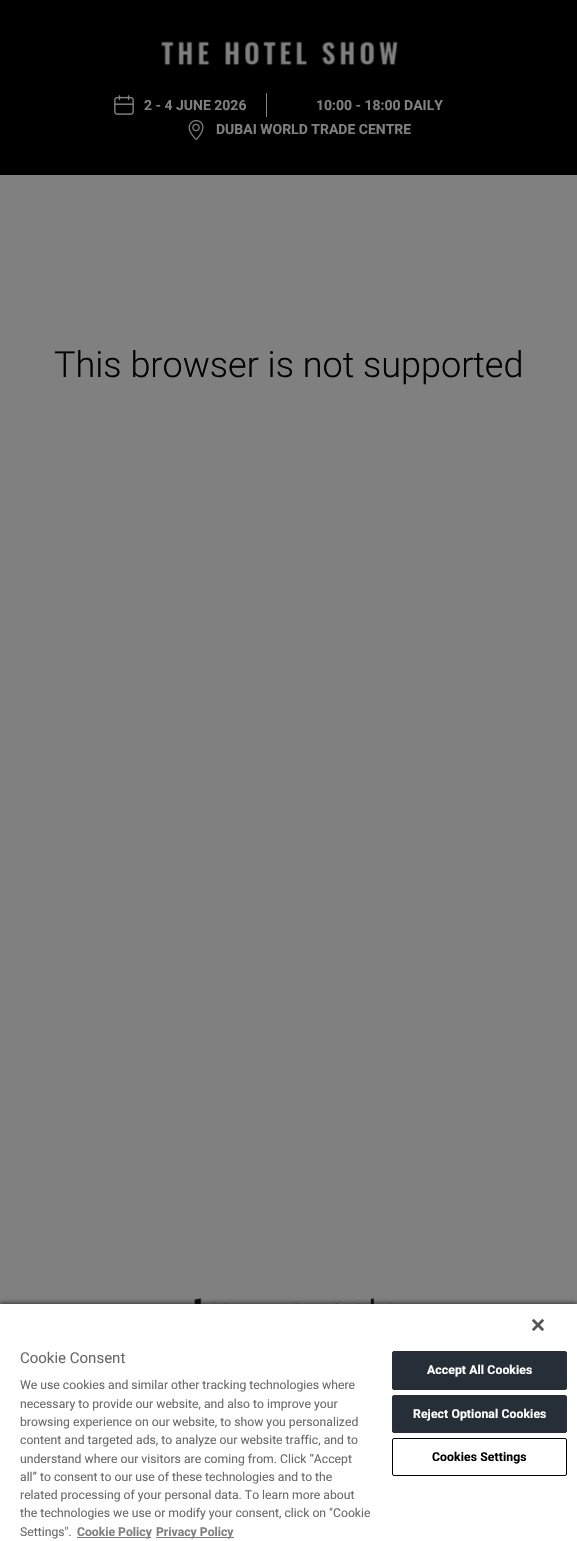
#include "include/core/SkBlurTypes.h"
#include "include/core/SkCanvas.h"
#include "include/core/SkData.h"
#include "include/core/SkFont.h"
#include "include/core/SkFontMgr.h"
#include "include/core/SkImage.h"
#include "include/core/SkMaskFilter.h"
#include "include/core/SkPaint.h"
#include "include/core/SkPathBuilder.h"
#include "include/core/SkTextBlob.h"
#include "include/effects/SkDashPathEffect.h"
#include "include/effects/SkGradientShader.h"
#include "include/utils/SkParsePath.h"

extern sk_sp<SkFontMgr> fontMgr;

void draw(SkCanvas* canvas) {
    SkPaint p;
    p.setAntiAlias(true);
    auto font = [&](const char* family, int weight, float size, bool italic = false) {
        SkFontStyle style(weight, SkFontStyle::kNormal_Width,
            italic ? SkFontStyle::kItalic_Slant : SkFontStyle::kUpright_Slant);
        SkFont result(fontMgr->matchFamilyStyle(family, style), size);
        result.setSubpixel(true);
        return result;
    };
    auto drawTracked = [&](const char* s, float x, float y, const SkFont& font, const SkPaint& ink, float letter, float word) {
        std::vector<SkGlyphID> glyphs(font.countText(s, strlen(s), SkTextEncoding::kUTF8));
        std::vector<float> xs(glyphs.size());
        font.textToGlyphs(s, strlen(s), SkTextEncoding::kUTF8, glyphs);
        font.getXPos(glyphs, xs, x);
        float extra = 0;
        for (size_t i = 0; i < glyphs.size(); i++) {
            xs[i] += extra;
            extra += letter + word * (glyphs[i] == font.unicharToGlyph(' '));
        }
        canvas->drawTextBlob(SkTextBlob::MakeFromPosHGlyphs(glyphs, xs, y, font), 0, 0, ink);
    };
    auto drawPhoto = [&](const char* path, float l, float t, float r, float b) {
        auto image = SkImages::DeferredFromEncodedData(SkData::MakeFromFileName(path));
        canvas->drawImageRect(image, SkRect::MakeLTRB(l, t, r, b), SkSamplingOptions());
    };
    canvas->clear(0xFF808080);
    p.setColor(0xFF000000);
    canvas->drawRect(SkRect::MakeLTRB(0, 0, 577, 175), p);
    drawPhoto("media/1.png", 161, 41, 398, 66);
    drawPhoto("media/2.png", 114, 95, 134, 115);
    auto font1 = font("Roboto", 700, 14);
    p.setColor(0xFF808080);
    canvas->drawString("2 - 4 JUNE 2026", 144, 110, font1, p);
    canvas->drawRect(SkRect::MakeLTRB(266, 93, 267, 117), p);
    canvas->drawString("10:00 - 18:00 DAILY", 316, 110, font1, p);
    drawPhoto("media/3.png", 188, 120, 204, 140);
    canvas->drawString("DUBAI WORLD TRADE CENTRE", 216, 134, font1, p);
    auto font2 = font("Roboto", 300, 36);
    p.setColor(0xFF000000);
    canvas->drawString("This browser is not supported", 54, 377, font2, p);
    drawPhoto("media/4.png", 194, 1298, 392, 1304);
    p.setColor(0x59000000);
    p.setMaskFilter(SkMaskFilter::MakeBlur(kNormal_SkBlurStyle, 2));
    canvas->drawRect(SkRect::MakeLTRB(0, 1302, 577, 1541), p);
    p.setMaskFilter(nullptr);
    p.setColor(0x33000000);
    p.setMaskFilter(SkMaskFilter::MakeBlur(kNormal_SkBlurStyle, 2));
    canvas->drawRect(SkRect::MakeLTRB(0, 1304, 577, 1541), p);
    p.setMaskFilter(nullptr);
    p.setColor(0xFFFFFFFF);
    canvas->drawRect(SkRect::MakeLTRB(0, 1304, 577, 1541), p);
    drawPhoto("media/5.png", 532, 1319, 544, 1331);
    auto font3 = font("Roboto", 400, 15);
    p.setColor(0xFF696969);
    canvas->drawString("Cookie Consent", 20, 1363, font3, p);
    auto font4 = font("Roboto", 400, 12.2f);
    {
        const struct { const char* s; float x, y; } items[] = {
            {"We use cookies and similar other tracking technologies where", 20, 1389},
            {"necessary to provide our website, and also to improve your", 20, 1408},
            {"browsing experience on our website, to show you personalized", 20, 1426},
            {"content and targeted ads, to analyze our website traffic, and to", 20, 1444},
            {"understand where our visitors are coming from. Click “Accept", 20, 1463},
            {"all” to consent to our use of these technologies and to the", 20, 1481},
            {"related processing of your personal data. To learn more about", 20, 1499},
            {"the technologies we use or modify your consent, click on \"Cookie", 20, 1517},
            {"Settings\".", 20, 1536},
        };
        for (auto [s, x, y] : items) {
            canvas->drawString(s, x, y, font4, p);
        }
    }
    p.setColor(0xFF7E7C7C);
    canvas->drawRect(SkRect::MakeLTRB(77, 1537, 151, 1538), p);
    auto font5 = font("Roboto", 700, 12.2f);
    p.setColor(0xFF808080);
    canvas->drawString("Cookie Policy", 77, 1536, font5, p);
    p.setColor(0xFF7E7C7C);
    canvas->drawRect(SkRect::MakeLTRB(156, 1537, 234, 1538), p);
    p.setColor(0xFF808080);
    canvas->drawString("Privacy Policy", 156, 1536, font5, p);
    p.setColor(0xFF262E38);
    canvas->drawRoundRect(SkRect::MakeLTRB(392.5f, 1351.5f, 566.5f, 1389.5f), 1.5f, 1.5f, p);
    p.setStyle(SkPaint::kStroke_Style);
    p.setStrokeWidth(1);
    canvas->drawRoundRect(SkRect::MakeLTRB(392.5f, 1351.5f, 566.5f, 1389.5f), 1.5f, 1.5f, p);
    p.setStyle(SkPaint::kFill_Style);
    p.setColor(0xFFFFFFFF);
    drawTracked("Accept All Cookies", 427, 1374, font5, p, 0.1f, 0);
    p.setColor(0xFF262E38);
    canvas->drawRoundRect(SkRect::MakeLTRB(392.5f, 1395.5f, 566.5f, 1432.5f), 1.5f, 1.5f, p);
    p.setStyle(SkPaint::kStroke_Style);
    canvas->drawRoundRect(SkRect::MakeLTRB(392.5f, 1395.5f, 566.5f, 1432.5f), 1.5f, 1.5f, p);
    p.setStyle(SkPaint::kFill_Style);
    p.setColor(0xFFFFFFFF);
    drawTracked("Reject Optional Cookies", 413, 1418, font5, p, 0.1f, 0);
    p.setStyle(SkPaint::kStroke_Style);
    p.setColor(0xFF000000);
    canvas->drawRoundRect(SkRect::MakeLTRB(392.5f, 1438.5f, 566.5f, 1475.5f), 1.5f, 1.5f, p);
    p.setStyle(SkPaint::kFill_Style);
    drawTracked("Cookies Settings", 432, 1461, font5, p, 0.1f, 0);
}
